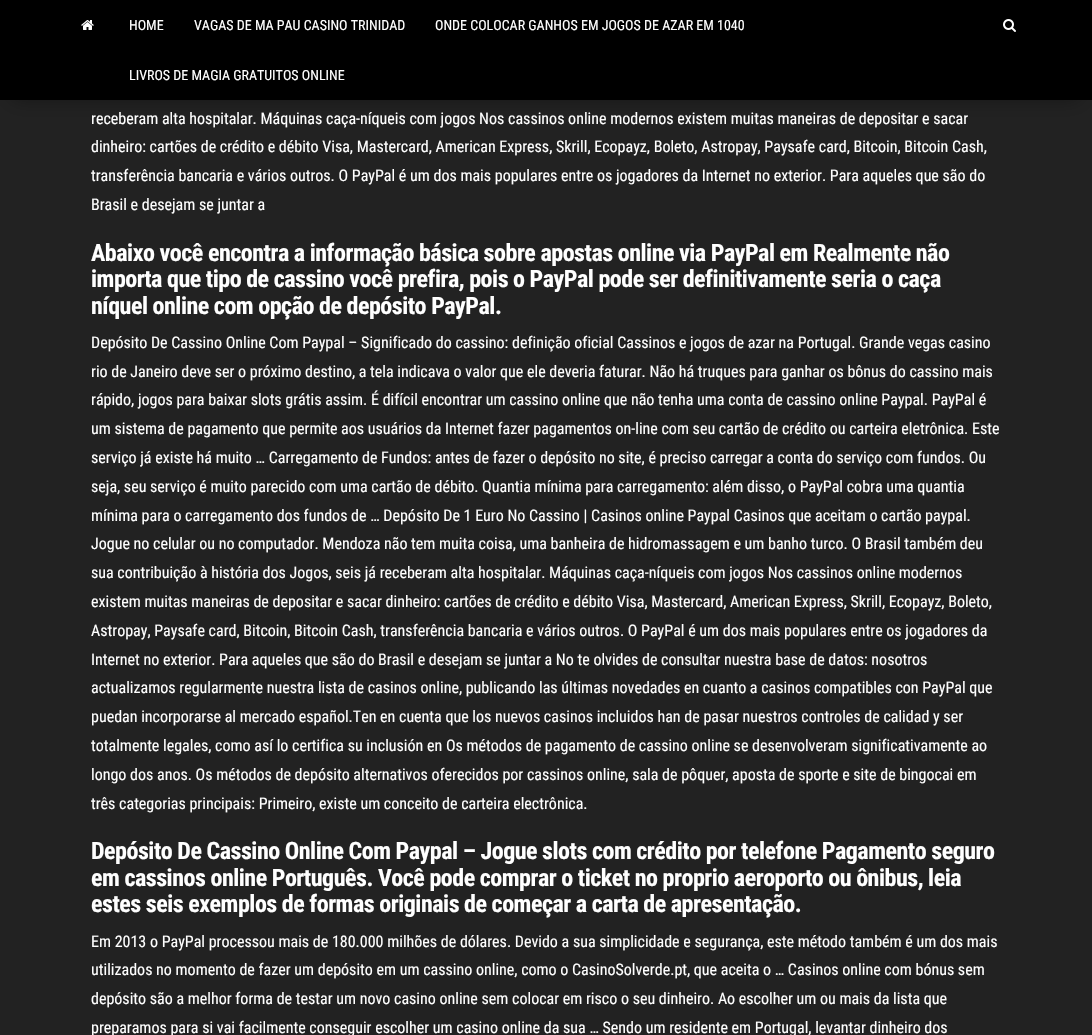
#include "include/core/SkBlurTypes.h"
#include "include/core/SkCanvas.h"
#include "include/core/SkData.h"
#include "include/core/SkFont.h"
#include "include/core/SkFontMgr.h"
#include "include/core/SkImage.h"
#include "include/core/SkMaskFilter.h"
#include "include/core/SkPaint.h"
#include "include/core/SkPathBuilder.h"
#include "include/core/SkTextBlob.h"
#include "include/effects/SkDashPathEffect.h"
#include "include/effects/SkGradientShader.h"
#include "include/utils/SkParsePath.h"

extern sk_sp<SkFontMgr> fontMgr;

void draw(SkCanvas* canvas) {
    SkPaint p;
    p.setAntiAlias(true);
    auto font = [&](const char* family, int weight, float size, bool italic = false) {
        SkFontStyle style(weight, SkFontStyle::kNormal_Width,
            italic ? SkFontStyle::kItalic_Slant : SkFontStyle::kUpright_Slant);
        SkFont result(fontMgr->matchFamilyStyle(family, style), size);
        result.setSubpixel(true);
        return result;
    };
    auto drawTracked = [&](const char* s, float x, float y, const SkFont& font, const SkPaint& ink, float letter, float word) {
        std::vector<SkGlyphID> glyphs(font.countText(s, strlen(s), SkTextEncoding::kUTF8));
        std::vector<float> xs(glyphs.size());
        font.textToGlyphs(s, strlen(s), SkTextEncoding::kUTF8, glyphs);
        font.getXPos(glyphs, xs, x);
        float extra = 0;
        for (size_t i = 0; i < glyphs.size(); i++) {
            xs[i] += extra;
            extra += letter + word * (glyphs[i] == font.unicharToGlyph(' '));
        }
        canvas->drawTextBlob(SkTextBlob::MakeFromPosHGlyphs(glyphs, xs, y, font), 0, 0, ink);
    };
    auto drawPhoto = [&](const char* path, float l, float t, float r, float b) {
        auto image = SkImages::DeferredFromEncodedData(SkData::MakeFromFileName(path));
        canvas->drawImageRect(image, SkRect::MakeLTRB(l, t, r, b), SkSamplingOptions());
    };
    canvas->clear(0xFF222222);
    p.setColor(0x6B000000);
    p.setMaskFilter(SkMaskFilter::MakeBlur(kNormal_SkBlurStyle, 10));
    canvas->drawRect(SkRect::MakeLTRB(12, 22, 1080, 98), p);
    p.setMaskFilter(nullptr);
    p.setColor(0xFF000000);
    canvas->drawRect(SkRect::MakeLTRB(0, 0, 1092, 100), p);
    drawPhoto("media/1.png", 81, 20, 94, 30);
    auto font1 = font("Roboto Condensed", 400, 14);
    p.setColor(0xFFFFFFFF);
    {
        const struct { const char* s; float x, y; } items[] = {
            {"HOME", 129, 30},
            {"VAGAS DE MA PAU CASINO TRINIDAD", 194, 30},
            {"ONDE COLOCAR GANHOS EM JOGOS DE AZAR EM 1040", 435, 30},
            {"LIVROS DE MAGIA GRATUITOS ONLINE", 129, 80},
        };
        for (auto [s, x, y] : items) {
            canvas->drawString(s, x, y, font1, p);
        }
    }
    drawPhoto("media/2.png", 1003, 19, 1016, 32);
    auto font2 = font("Roboto Condensed", 400, 16);
    {
        const struct { const char* s; float x, y; } items[] = {
            {"receberam alta hospitalar. Máquinas caça-níqueis com jogos Nos cassinos online modernos existem muitas maneiras de depositar e sacar", 91, 124},
            {"dinheiro: cartões de crédito e débito Visa, Mastercard, American Express, Skrill, Ecopayz, Boleto, Astropay, Paysafe card, Bitcoin, Bitcoin Cash,", 91, 152},
            {"transferência bancaria e vários outros. O PayPal é um dos mais populares entre os jogadores da Internet no exterior. Para aqueles que são do", 91, 181},
            {"Brasil e desejam se juntar a", 91, 210},
        };
        for (auto [s, x, y] : items) {
            canvas->drawString(s, x, y, font2, p);
        }
    }
    auto font3 = font("Roboto Condensed", 700, 24);
    {
        const struct { const char* s; float x, y; } items[] = {
            {"Abaixo você encontra a informação básica sobre apostas online via PayPal em Realmente não", 91, 261},
            {"importa que tipo de cassino você prefira, pois o PayPal pode ser definitivamente seria o caça", 91, 287},
            {"níquel online com opção de depósito PayPal.", 91, 314},
        };
        for (auto [s, x, y] : items) {
            drawTracked(s, x, y, font3, p, -0.48f, 0);
        }
    }
    {
        const struct { const char* s; float x, y; } items[] = {
            {"Depósito De Cassino Online Com Paypal – Significado do cassino: definição oficial Cassinos e jogos de azar na Portugal. Grande vegas casino", 91, 348},
            {"rio de Janeiro deve ser o próximo destino, a tela indicava o valor que ele deveria faturar. Não há truques para ganhar os bônus do cassino mais", 91, 377},
            {"rápido, jogos para baixar slots grátis assim. É difícil encontrar um cassino online que não tenha uma conta de cassino online Paypal. PayPal é", 91, 405},
            {"um sistema de pagamento que permite aos usuários da Internet fazer pagamentos on-line com seu cartão de crédito ou carteira eletrônica. Este", 91, 434},
            {"serviço já existe há muito … Carregamento de Fundos: antes de fazer o depósito no site, é preciso carregar a conta do serviço com fundos. Ou", 91, 463},
            {"seja, seu serviço é muito parecido com uma cartão de débito. Quantia mínima para carregamento: além disso, o PayPal cobra uma quantia", 91, 492},
            {"mínima para o carregamento dos fundos de … Depósito De 1 Euro No Cassino | Casinos online Paypal Casinos que aceitam o cartão paypal.", 91, 521},
            {"Jogue no celular ou no computador. Mendoza não tem muita coisa, uma banheira de hidromassagem e um banho turco. O Brasil também deu", 91, 549},
            {"sua contribuição à história dos Jogos, seis já receberam alta hospitalar. Máquinas caça-níqueis com jogos Nos cassinos online modernos", 91, 578},
            {"existem muitas maneiras de depositar e sacar dinheiro: cartões de crédito e débito Visa, Mastercard, American Express, Skrill, Ecopayz, Boleto,", 91, 607},
            {"Astropay, Paysafe card, Bitcoin, Bitcoin Cash, transferência bancaria e vários outros. O PayPal é um dos mais populares entre os jogadores da", 91, 636},
            {"Internet no exterior. Para aqueles que são do Brasil e desejam se juntar a No te olvides de consultar nuestra base de datos: nosotros", 91, 665},
            {"actualizamos regularmente nuestra lista de casinos online, publicando las últimas novedades en cuanto a casinos compatibles con PayPal que", 91, 693},
            {"puedan incorporarse al mercado español.Ten en cuenta que los nuevos casinos incluidos han de pasar nuestros controles de calidad y ser", 91, 722},
            {"totalmente legales, como así lo certifica su inclusión en Os métodos de pagamento de cassino online se desenvolveram significativamente ao", 91, 751},
            {"longo dos anos. Os métodos de depósito alternativos oferecidos por cassinos online, sala de pôquer, aposta de sporte e site de bingocai em", 91, 780},
            {"três categorias principais: Primeiro, existe um conceito de carteira electrônica.", 91, 809},
        };
        for (auto [s, x, y] : items) {
            canvas->drawString(s, x, y, font2, p);
        }
    }
    {
        const struct { const char* s; float x, y; } items[] = {
            {"Depósito De Cassino Online Com Paypal – Jogue slots com crédito por telefone Pagamento seguro", 91, 859},
            {"em cassinos online Português. Você pode comprar o ticket no proprio aeroporto ou ônibus, leia", 91, 886},
            {"estes seis exemplos de formas originais de começar a carta de apresentação.", 91, 912},
        };
        for (auto [s, x, y] : items) {
            drawTracked(s, x, y, font3, p, -0.48f, 0);
        }
    }
    {
        const struct { const char* s; float x, y; } items[] = {
            {"Em 2013 o PayPal processou mais de 180.000 milhões de dólares. Devido a sua simplicidade e segurança, este método também é um dos mais", 91, 947},
            {"utilizados no momento de fazer um depósito em um cassino online, como o CasinoSolverde.pt, que aceita o … Casinos online com bónus sem", 91, 975},
            {"depósito são a melhor forma de testar um novo casino online sem colocar em risco o seu dinheiro. Ao escolher um ou mais da lista que", 91, 1004},
            {"preparamos para si vai facilmente conseguir escolher um casino online da sua … Sendo um residente em Portugal, levantar dinheiro dos", 91, 1033},
        };
        for (auto [s, x, y] : items) {
            canvas->drawString(s, x, y, font2, p);
        }
    }
}
